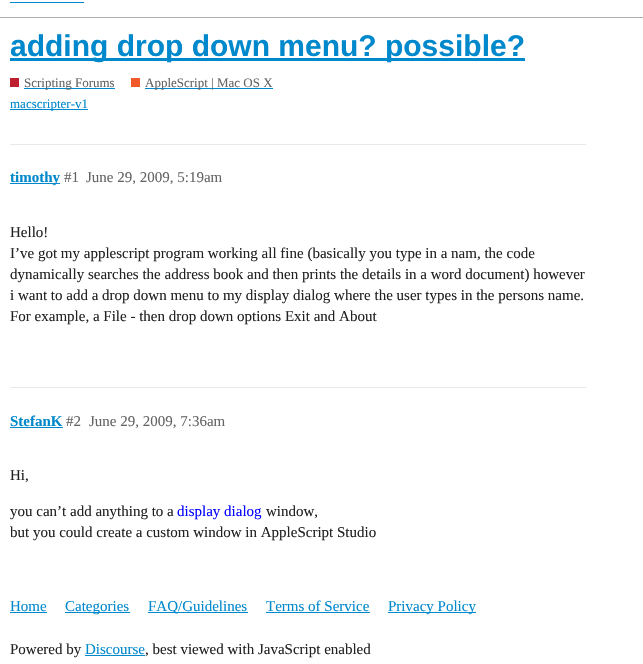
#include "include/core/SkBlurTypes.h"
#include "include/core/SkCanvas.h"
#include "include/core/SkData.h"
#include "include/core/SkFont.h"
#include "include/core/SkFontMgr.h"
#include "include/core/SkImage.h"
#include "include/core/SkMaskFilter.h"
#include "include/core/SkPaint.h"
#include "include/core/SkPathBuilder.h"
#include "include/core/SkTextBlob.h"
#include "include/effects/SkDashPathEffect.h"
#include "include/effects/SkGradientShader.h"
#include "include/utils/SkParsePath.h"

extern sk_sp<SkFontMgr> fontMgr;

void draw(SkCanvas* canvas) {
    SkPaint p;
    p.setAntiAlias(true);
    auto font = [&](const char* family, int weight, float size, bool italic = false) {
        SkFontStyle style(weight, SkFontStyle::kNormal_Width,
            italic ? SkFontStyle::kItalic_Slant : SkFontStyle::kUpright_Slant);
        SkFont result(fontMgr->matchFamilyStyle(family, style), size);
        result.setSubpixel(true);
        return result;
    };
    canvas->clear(0xFFFFFFFF);
    {
        const struct { float l, t, r, b; SkColor color; } items[] = {
            {0, 17, 643, 18, 0xFFAFAFAF},
            {10, 2, 84, 3, 0xFF0088CC},
            {10, 58, 525, 61, 0xFF0088CC},
        };
        for (auto [l, t, r, b, color] : items) {
            p.setColor(color);
            canvas->drawRect(SkRect::MakeLTRB(l, t, r, b), p);
        }
    }
    auto font1 = font("Liberation Sans", 700, 30);
    canvas->drawString("adding drop down menu? possible?", 10, 56, font1, p);
    p.setColor(0xFFBF1E2E);
    canvas->drawRect(SkRect::MakeLTRB(10, 78, 19, 87), p);
    p.setColor(0xFF0088CC);
    canvas->drawRect(SkRect::MakeLTRB(24, 88, 115, 89), p);
    auto font2 = font("Liberation Serif", 400, 13);
    p.setColor(0xFF646464);
    canvas->drawString("Scripting Forums", 24, 87, font2, p);
    p.setColor(0xFFF1592A);
    canvas->drawRect(SkRect::MakeLTRB(131, 78, 140, 87), p);
    p.setColor(0xFF0088CC);
    canvas->drawRect(SkRect::MakeLTRB(145, 88, 273, 89), p);
    p.setColor(0xFF646464);
    canvas->drawString("AppleScript | Mac OS X", 145, 87, font2, p);
    p.setColor(0xFF0088CC);
    canvas->drawRect(SkRect::MakeLTRB(10, 109, 88, 110), p);
    canvas->drawString("macscripter-v1", 10, 108, font2, p);
    p.setColor(0xFFE9E9E9);
    canvas->drawRect(SkRect::MakeLTRB(10, 144, 586, 145), p);
    p.setColor(0xFF0088CC);
    canvas->drawRect(SkRect::MakeLTRB(10, 183, 60, 184), p);
    auto font3 = font("Liberation Serif", 700, 15);
    canvas->drawString("timothy", 10, 182, font3, p);
    auto font4 = font("Liberation Serif", 400, 15);
    p.setColor(0xFF646464);
    canvas->drawString("#1", 64, 182, font4, p);
    canvas->drawString("June 29, 2009, 5:19am", 86, 182, font4, p);
    p.setColor(0xFF222222);
    {
        const struct { const char* s; float x, y; } items[] = {
            {"Hello!", 10, 237},
            {"I’ve got my applescript program working all fine (basically you type in a nam, the code", 10, 258},
            {"dynamically searches the address book and then prints the details in a word document) however", 10, 279},
            {"i want to add a drop down menu to my display dialog where the user types in the persons name.", 10, 300},
            {"For example, a File - then drop down options Exit and About", 10, 321},
        };
        for (auto [s, x, y] : items) {
            canvas->drawString(s, x, y, font4, p);
        }
    }
    p.setColor(0xFFE9E9E9);
    canvas->drawRect(SkRect::MakeLTRB(10, 387, 586, 388), p);
    p.setColor(0xFF0088CC);
    canvas->drawString("StefanK", 10, 426, font3, p);
    canvas->drawRect(SkRect::MakeLTRB(10, 427, 63, 428), p);
    p.setColor(0xFF646464);
    canvas->drawString("#2", 66, 426, font4, p);
    canvas->drawString("June 29, 2009, 7:36am", 89, 426, font4, p);
    p.setColor(0xFF222222);
    canvas->drawString("Hi,", 10, 480, font4, p);
    canvas->drawString("you can’t add anything to a", 10, 516, font4, p);
    p.setColor(0xFF0000FF);
    canvas->drawString("display dialog", 177, 516, font4, p);
    p.setColor(0xFF222222);
    canvas->drawString("window,", 266, 516, font4, p);
    canvas->drawString("but you could create a custom window in AppleScript Studio", 10, 537, font4, p);
    p.setColor(0xFF0088CC);
    canvas->drawString("Home", 10, 611, font4, p);
    canvas->drawRect(SkRect::MakeLTRB(10, 612, 47, 613), p);
    canvas->drawRect(SkRect::MakeLTRB(65, 612, 130, 613), p);
    canvas->drawString("Categories", 65, 611, font4, p);
    canvas->drawRect(SkRect::MakeLTRB(148, 612, 248, 613), p);
    canvas->drawString("FAQ/Guidelines", 148, 611, font4, p);
    canvas->drawString("Terms of Service", 266, 611, font4, p);
    canvas->drawRect(SkRect::MakeLTRB(266, 612, 370, 613), p);
    canvas->drawRect(SkRect::MakeLTRB(388, 612, 476, 613), p);
    canvas->drawString("Privacy Policy", 388, 611, font4, p);
    p.setColor(0xFF222222);
    canvas->drawString("Powered by", 10, 654, font4, p);
    p.setColor(0xFF0088CC);
    canvas->drawString("Discourse", 85, 654, font4, p);
    canvas->drawRect(SkRect::MakeLTRB(85, 655, 145, 656), p);
    p.setColor(0xFF222222);
    canvas->drawString(", best viewed with JavaScript enabled", 145, 654, font4, p);
}
